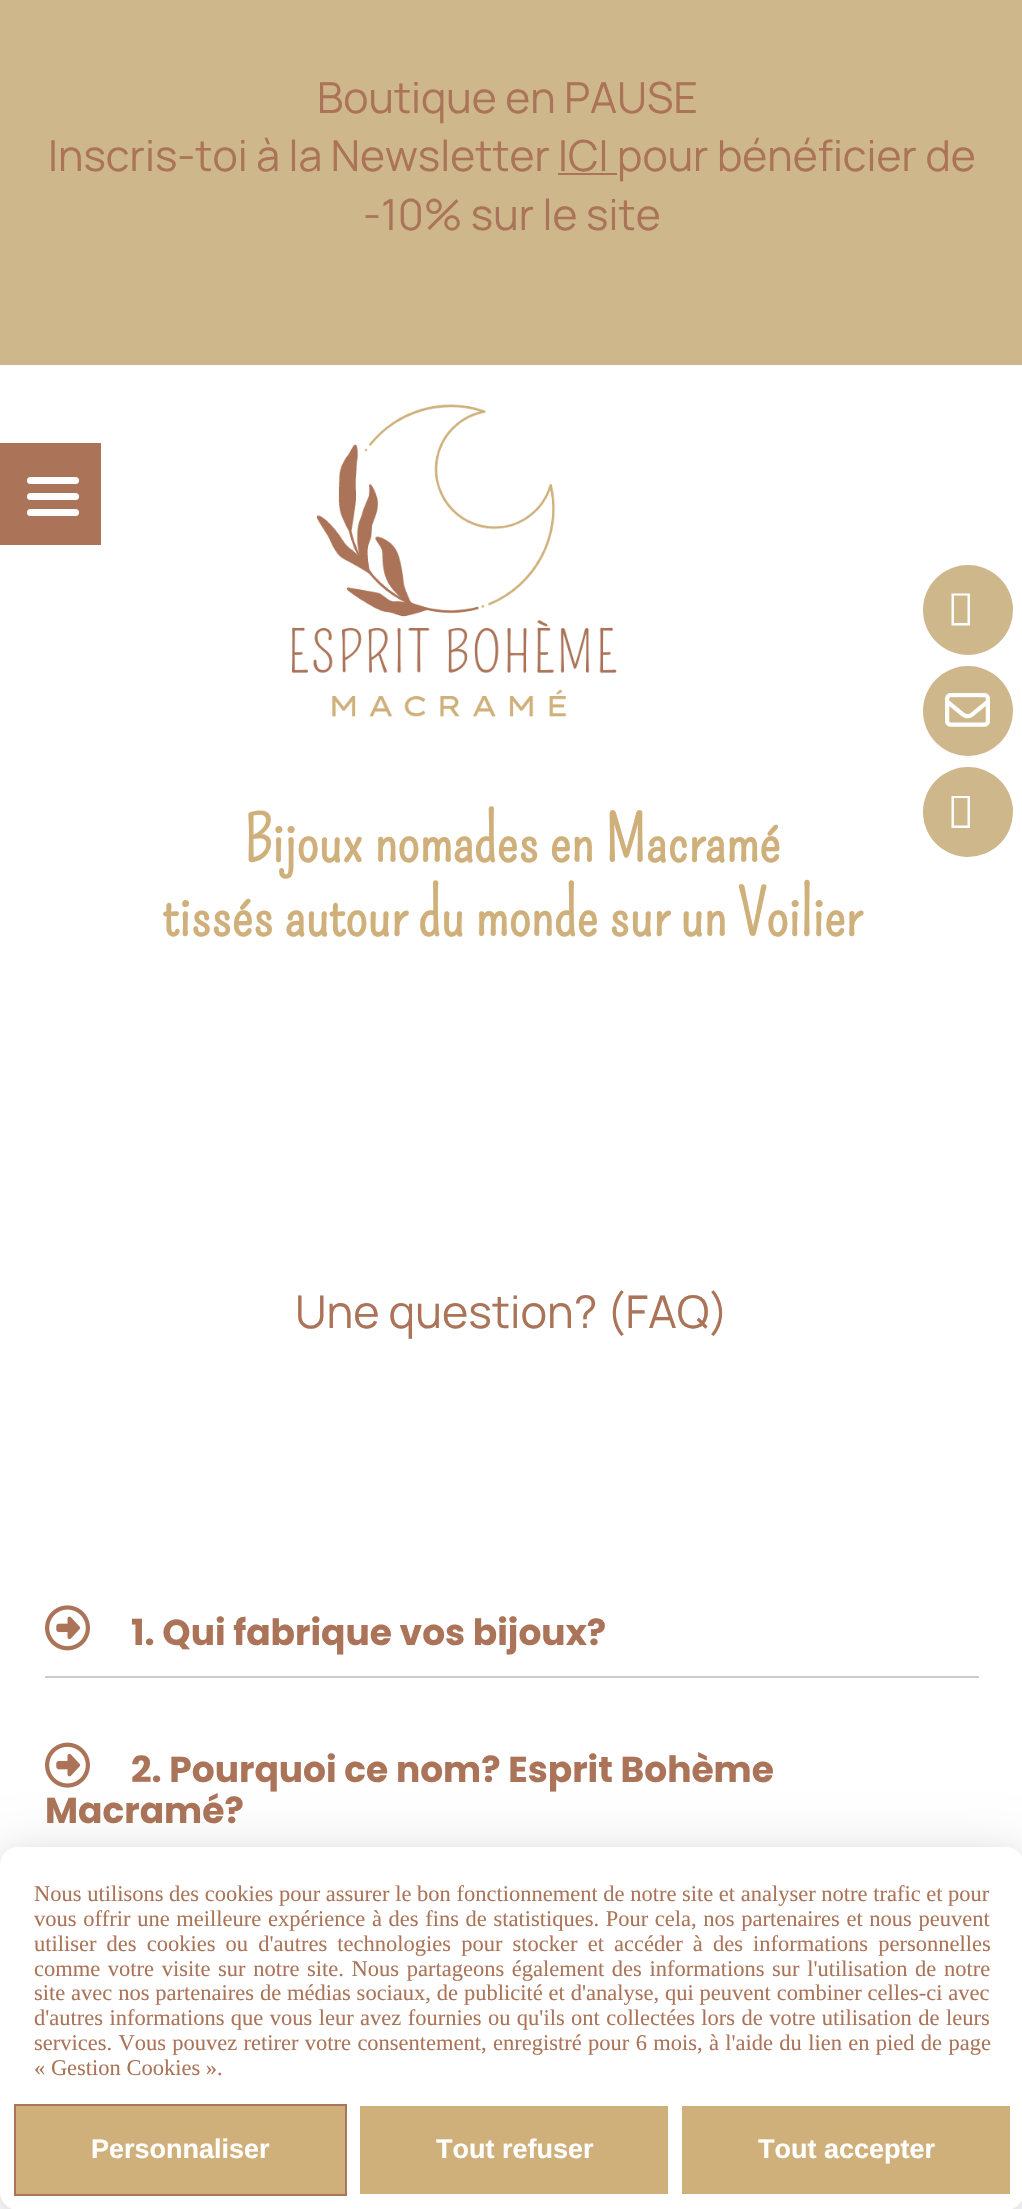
#include "include/core/SkBlurTypes.h"
#include "include/core/SkCanvas.h"
#include "include/core/SkData.h"
#include "include/core/SkFont.h"
#include "include/core/SkFontMgr.h"
#include "include/core/SkImage.h"
#include "include/core/SkMaskFilter.h"
#include "include/core/SkPaint.h"
#include "include/core/SkPathBuilder.h"
#include "include/core/SkTextBlob.h"
#include "include/effects/SkDashPathEffect.h"
#include "include/effects/SkGradientShader.h"
#include "include/utils/SkParsePath.h"

extern sk_sp<SkFontMgr> fontMgr;

void draw(SkCanvas* canvas) {
    SkPaint p;
    p.setAntiAlias(true);
    auto font = [&](const char* family, int weight, float size, bool italic = false) {
        SkFontStyle style(weight, SkFontStyle::kNormal_Width,
            italic ? SkFontStyle::kItalic_Slant : SkFontStyle::kUpright_Slant);
        SkFont result(fontMgr->matchFamilyStyle(family, style), size);
        result.setSubpixel(true);
        return result;
    };
    auto drawTracked = [&](const char* s, float x, float y, const SkFont& font, const SkPaint& ink, float letter, float word) {
        std::vector<SkGlyphID> glyphs(font.countText(s, strlen(s), SkTextEncoding::kUTF8));
        std::vector<float> xs(glyphs.size());
        font.textToGlyphs(s, strlen(s), SkTextEncoding::kUTF8, glyphs);
        font.getXPos(glyphs, xs, x);
        float extra = 0;
        for (size_t i = 0; i < glyphs.size(); i++) {
            xs[i] += extra;
            extra += letter + word * (glyphs[i] == font.unicharToGlyph(' '));
        }
        canvas->drawTextBlob(SkTextBlob::MakeFromPosHGlyphs(glyphs, xs, y, font), 0, 0, ink);
    };
    auto drawPhoto = [&](const char* path, float l, float t, float r, float b) {
        auto image = SkImages::DeferredFromEncodedData(SkData::MakeFromFileName(path));
        canvas->drawImageRect(image, SkRect::MakeLTRB(l, t, r, b), SkSamplingOptions());
    };
    canvas->clear(0xFFFFFFFF);
    p.setColor(0xFFCFB78C);
    canvas->drawRect(SkRect::MakeLTRB(0, 0, 1022, 365), p);
    auto font1 = font("Manrope", 400, 42.75f);
    p.setColor(0xFFAB7458);
    canvas->drawString("Boutique en PAUSE", 317, 113, font1, p);
    canvas->drawString("Inscris-toi à la Newsletter", 48, 171, font1, p);
    canvas->drawRect(SkRect::MakeLTRB(558, 173, 617, 175), p);
    canvas->drawString("ICI pour bénéficier de", 558, 171, font1, p);
    canvas->drawString("-10% sur le site", 363, 230, font1, p);
    p.setColor(0xFFCFB78C);
    canvas->drawCircle(968, 610, 45, p);
    p.setColor(0xFFFFFFFF);
    canvas->drawPath(SkPathBuilder().moveTo(951.5f, 625.5f).lineTo(951.5f, 593.5f).lineTo(970, 593.5f).lineTo(970, 625.5f).close().moveTo(954, 623).lineTo(967.5f, 623).lineTo(967.5f, 595.5f).lineTo(954, 595.5f).close().detach(), p);
    p.setColor(0xFFCFB78C);
    canvas->drawCircle(968, 711, 45, p);
    drawPhoto("media/1.png", 945, 693, 990, 727);
    canvas->drawCircle(968, 812, 45, p);
    p.setColor(0xFFFFFFFF);
    canvas->drawPath(SkPathBuilder().moveTo(951.5f, 828).lineTo(951.5f, 796).lineTo(970, 796).lineTo(970, 828).close().moveTo(954, 825.5f).lineTo(967.5f, 825.5f).lineTo(967.5f, 798).lineTo(954, 798).close().detach(), p);
    p.setColor(0xFFAB7458);
    canvas->drawRect(SkRect::MakeLTRB(0, 443, 101, 545), p);
    p.setColor(0xFFFFFFFF);
    canvas->drawRoundRect(SkRect::MakeLTRB(27, 477, 79, 484), 3.5f, 3.5f, p);
    canvas->drawRoundRect(SkRect::MakeLTRB(27, 493, 79, 500), 3.5f, 3.5f, p);
    canvas->drawRoundRect(SkRect::MakeLTRB(27, 509, 79, 516), 3.5f, 3.5f, p);
    drawPhoto("media/2.png", 291, 404, 617, 717);
    auto font2 = font("Pompiere", 700, 63);
    p.setColor(0xFFCFB07B);
    canvas->drawString("Bijoux nomades en Macramé", 244, 862, font2, p);
    canvas->drawString("tissés autour du monde sur un Voilier", 162, 936, font2, p);
    auto font3 = font("Manrope", 400, 45);
    p.setColor(0xFFAB7458);
    canvas->drawString("Une question? (FAQ)", 295, 1328, font3, p);
    p.setColor(0xFFCCCCCC);
    canvas->drawRect(SkRect::MakeLTRB(45, 1676, 979, 1678), p);
    drawPhoto("media/3.png", 45, 1605, 90, 1651);
    auto font4 = font("Poppins", 700, 36);
    p.setColor(0xFFAB7458);
    canvas->drawString("1. Qui fabrique vos bijoux?", 131, 1645, font4, p);
    drawPhoto("media/4.png", 45, 1742, 90, 1788);
    canvas->drawString("2. Pourquoi ce nom? Esprit Bohème", 131, 1782, font4, p);
    canvas->drawString("Macramé?", 45, 1823, font4, p);
    p.setColor(0x0D000000);
    p.setMaskFilter(SkMaskFilter::MakeBlur(kNormal_SkBlurStyle, 7));
    canvas->drawRoundRect(SkRect::MakeLTRB(0, 1852, 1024, 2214), 18, 18, p);
    p.setMaskFilter(nullptr);
    p.setColor(0x26000000);
    p.setMaskFilter(SkMaskFilter::MakeBlur(kNormal_SkBlurStyle, 27));
    canvas->drawRoundRect(SkRect::MakeLTRB(0, 1856, 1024, 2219), 18, 18, p);
    p.setMaskFilter(nullptr);
    p.setColor(0xFFFFFFFF);
    canvas->drawRoundRect(SkRect::MakeLTRB(0, 1847, 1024, 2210), 18, 18, p);
    auto font5 = font("Liberation Serif", 400, 22.5f);
    p.setColor(0xFFAB7458);
    canvas->drawString("Nous utilisons des cookies pour assurer le bon fonctionnement de notre site et analyser notre trafic et pour", 34, 1901, font5, p);
    drawTracked("vous offrir une meilleure expérience à des fins de statistiques. Pour cela, nos partenaires et nous peuvent", 34, 1926, font5, p, 0, 1);
    drawTracked("utiliser des cookies ou d'autres technologies pour stocker et accéder à des informations personnelles", 34, 1951, font5, p, 0, 4.5f);
    drawTracked("comme votre visite sur notre site. Nous partageons également des informations sur l'utilisation de notre", 34, 1976, font5, p, 0, 2);
    drawTracked("site avec nos partenaires de médias sociaux, de publicité et d'analyse, qui peuvent combiner celles-ci avec", 34, 2000, font5, p, 0, 0.25f);
    drawTracked("d'autres informations que vous leur avez fournies ou qu'ils ont collectées lors de votre utilisation de leurs", 34, 2025, font5, p, 0, 0.8f);
    drawTracked("services. Vous pouvez retirer votre consentement, enregistré pour 6 mois, à l'aide du lien en pied de page", 34, 2050, font5, p, 0, 0.7f);
    canvas->drawString("« Gestion Cookies ».", 34, 2075, font5, p);
    p.setColor(0xFFCFB07B);
    canvas->drawRect(SkRect::MakeLTRB(15, 2105, 346, 2195), p);
    p.setStyle(SkPaint::kStroke_Style);
    p.setStrokeWidth(2);
    p.setColor(0xFFAB7458);
    canvas->drawRect(SkRect::MakeLTRB(15, 2105, 346, 2195), p);
    auto font6 = font("Liberation Sans", 700, 27);
    p.setStyle(SkPaint::kFill_Style);
    p.setColor(0xFFFFFFFF);
    canvas->drawString("Personnaliser", 91, 2158, font6, p);
    p.setColor(0xFFCFB07B);
    canvas->drawRect(SkRect::MakeLTRB(360, 2106, 668, 2194), p);
    p.setColor(0xFFFFFFFF);
    canvas->drawString("Tout refuser", 436, 2158, font6, p);
    p.setColor(0xFFCFB07B);
    canvas->drawRect(SkRect::MakeLTRB(682, 2106, 1010, 2194), p);
    p.setColor(0xFFFFFFFF);
    canvas->drawString("Tout accepter", 758, 2158, font6, p);
}
